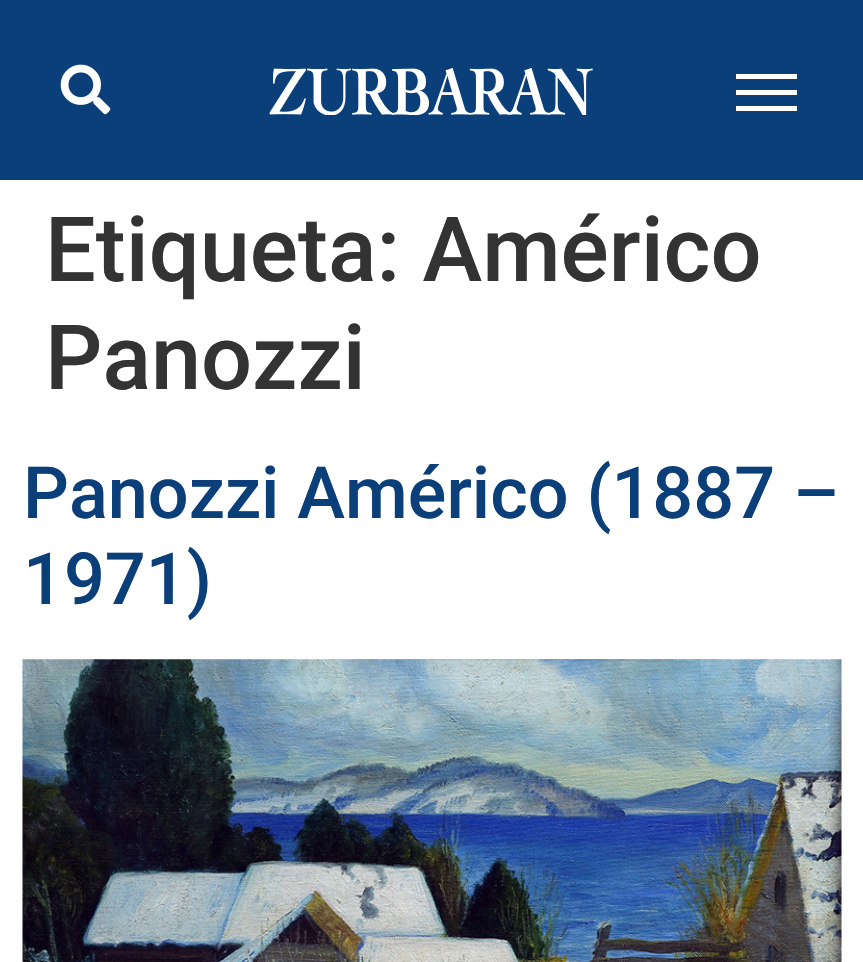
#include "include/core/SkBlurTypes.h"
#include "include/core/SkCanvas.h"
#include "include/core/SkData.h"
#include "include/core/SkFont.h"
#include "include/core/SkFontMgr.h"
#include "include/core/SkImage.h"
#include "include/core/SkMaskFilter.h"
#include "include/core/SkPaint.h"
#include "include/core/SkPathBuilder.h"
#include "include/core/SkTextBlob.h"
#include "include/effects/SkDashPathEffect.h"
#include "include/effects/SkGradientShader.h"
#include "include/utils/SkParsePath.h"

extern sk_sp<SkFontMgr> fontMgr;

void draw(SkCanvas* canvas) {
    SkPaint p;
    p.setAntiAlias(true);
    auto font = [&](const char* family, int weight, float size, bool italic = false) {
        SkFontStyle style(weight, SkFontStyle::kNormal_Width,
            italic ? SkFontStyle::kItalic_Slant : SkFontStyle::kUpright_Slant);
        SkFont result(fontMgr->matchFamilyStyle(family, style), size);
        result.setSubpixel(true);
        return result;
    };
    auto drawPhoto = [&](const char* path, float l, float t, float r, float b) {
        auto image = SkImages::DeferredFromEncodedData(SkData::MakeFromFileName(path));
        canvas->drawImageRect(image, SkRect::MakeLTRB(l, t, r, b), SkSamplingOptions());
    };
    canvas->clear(0xFFFFFFFF);
    p.setColor(0xFF0A3F7A);
    canvas->drawRect(SkRect::MakeLTRB(0, 0, 863, 180), p);
    drawPhoto("media/1.png", 60, 64, 111, 115);
    drawPhoto("media/2.png", 269, 68, 593, 115);
    {
        const struct { float l, t, r, b; SkColor color; } items[] = {
            {736, 74, 797, 79, 0xFFFFFFFF},
            {736, 90, 797, 95, 0xFFFFFFFF},
            {736, 106, 797, 111, 0xFFFFFFFF},
        };
        for (auto [l, t, r, b, color] : items) {
            p.setColor(color);
            canvas->drawRect(SkRect::MakeLTRB(l, t, r, b), p);
        }
    }
    auto font1 = font("Roboto", 500, 90);
    p.setColor(0xFF333333);
    canvas->drawString("Etiqueta: Américo", 45, 281, font1, p);
    canvas->drawString("Panozzi", 45, 389, font1, p);
    auto font2 = font("Roboto", 500, 72);
    p.setColor(0xFF0A3F7A);
    canvas->drawString("Panozzi Américo (1887 –", 23, 518, font2, p);
    canvas->drawString("1971)", 23, 604, font2, p);
    drawPhoto("media/3.png", 22, 659, 842, 962);
}
